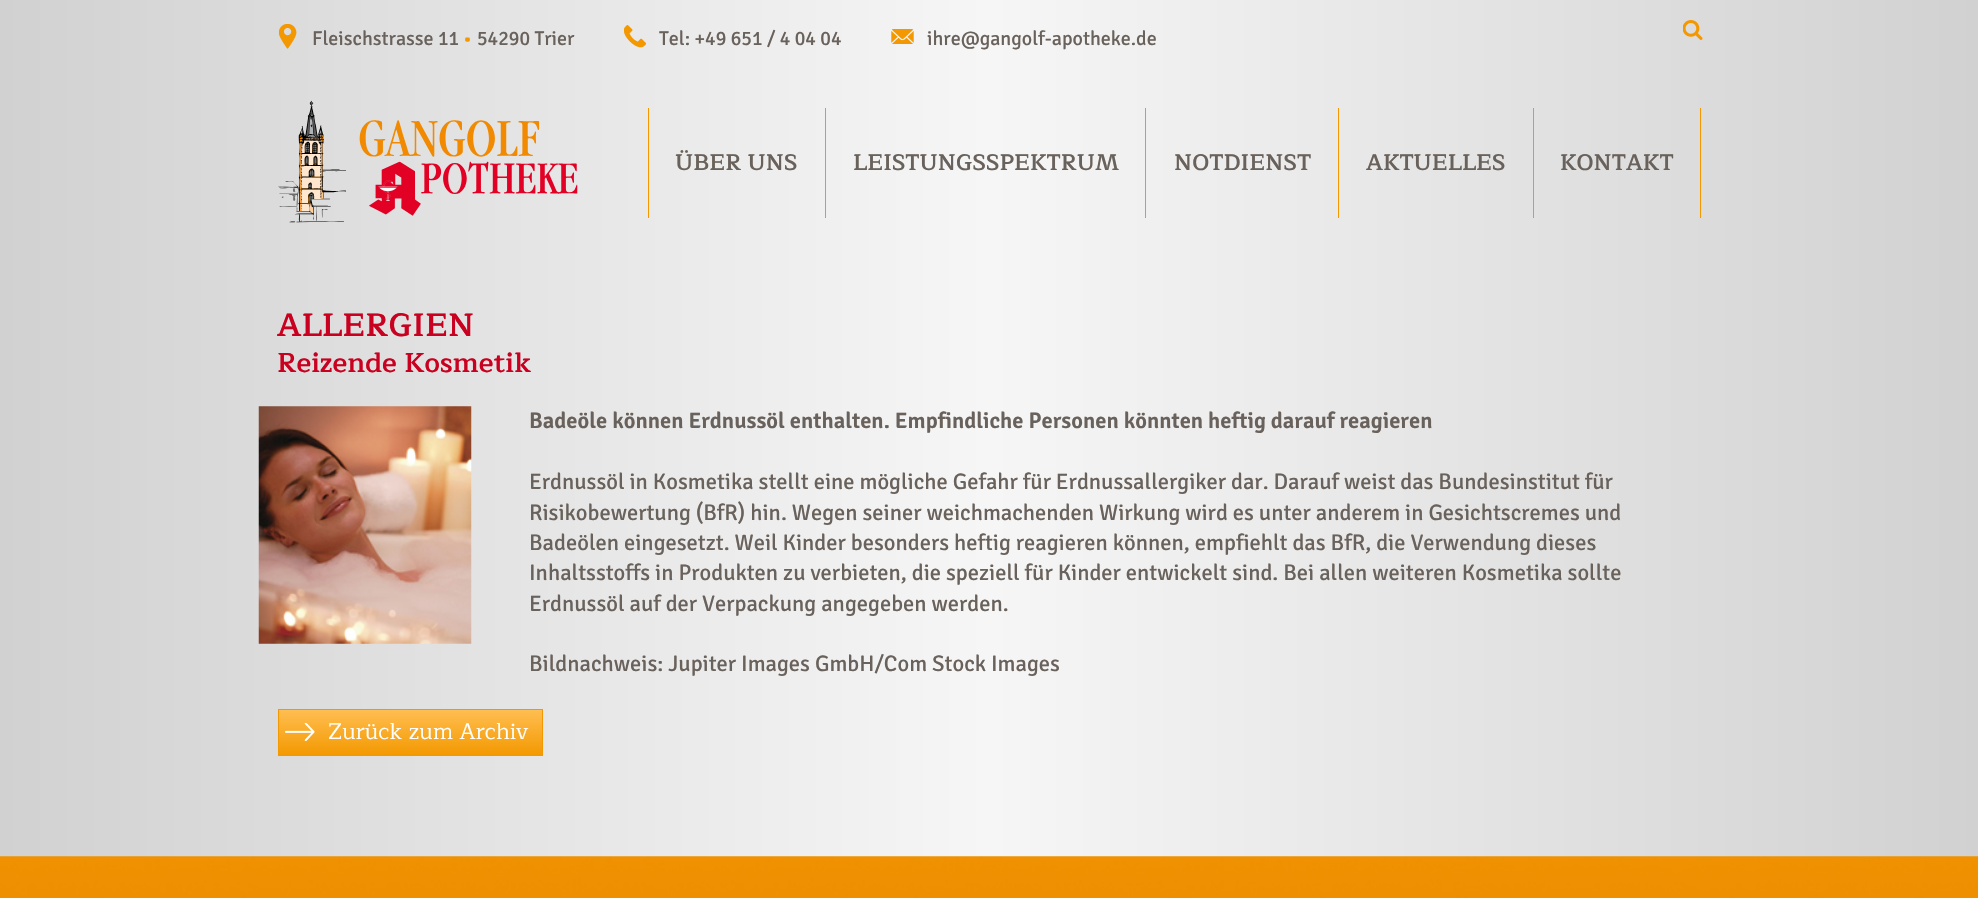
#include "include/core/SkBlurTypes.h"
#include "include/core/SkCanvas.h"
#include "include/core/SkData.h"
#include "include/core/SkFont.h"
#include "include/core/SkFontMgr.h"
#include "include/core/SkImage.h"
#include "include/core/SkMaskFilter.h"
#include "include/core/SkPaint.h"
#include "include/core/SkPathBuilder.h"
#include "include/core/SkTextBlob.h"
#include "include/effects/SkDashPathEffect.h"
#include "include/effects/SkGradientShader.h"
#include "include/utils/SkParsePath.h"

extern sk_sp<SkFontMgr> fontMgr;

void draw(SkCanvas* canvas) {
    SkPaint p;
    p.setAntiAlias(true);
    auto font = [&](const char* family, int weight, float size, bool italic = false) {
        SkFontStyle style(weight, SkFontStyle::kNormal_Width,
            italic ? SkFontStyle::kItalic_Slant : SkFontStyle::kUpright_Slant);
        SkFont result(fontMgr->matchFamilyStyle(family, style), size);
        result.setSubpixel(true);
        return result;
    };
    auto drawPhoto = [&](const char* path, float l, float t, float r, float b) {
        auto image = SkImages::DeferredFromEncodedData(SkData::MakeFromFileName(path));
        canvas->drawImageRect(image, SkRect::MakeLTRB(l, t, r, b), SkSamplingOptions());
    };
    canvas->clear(0xFFFFFFFF);
    {
        const SkColor colors[] = {0xFFD1D1D1, 0xFFF6F6F6, 0xFFD1D1D1};
        const float stops[] = {0, 0.5f, 1};
        const SkPoint ends[] = {{0, 449}, {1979, 449}};
        p.setShader(SkGradientShader::MakeLinear(ends, colors, stops, 3, SkTileMode::kClamp));
        p.setAlpha(255);
    }
    canvas->drawRect(SkRect::MakeLTRB(0, 0, 1978, 857), p);
    drawPhoto("media/1.png", 279, 24, 297, 49);
    auto font1 = font("Signika", 400, 20);
    p.setShader(nullptr);
    p.setColor(0xFF69615B);
    canvas->drawString("Fleischstrasse 11", 312, 45, font1, p);
    p.setColor(0xFFF39800);
    canvas->drawString("•", 463, 45, font1, p);
    p.setColor(0xFF69615B);
    canvas->drawString("54290 Trier", 477, 45, font1, p);
    drawPhoto("media/2.png", 624, 25, 646, 48);
    canvas->drawString("Tel: +49 651 / 4 04 04", 659, 45, font1, p);
    drawPhoto("media/3.png", 891, 29, 914, 44);
    canvas->drawString("ihre@gangolf-apotheke.de", 927, 45, font1, p);
    drawPhoto("media/4.png", 1683, 20, 1703, 40);
    drawPhoto("media/5.png", 278, 100, 578, 223);
    p.setColor(0xFFF39800);
    canvas->drawRect(SkRect::MakeLTRB(825, 108, 826, 218), p);
    canvas->drawRect(SkRect::MakeLTRB(648, 108, 649, 218), p);
    auto font2 = font("Maitree", 600, 22.5f);
    p.setColor(0xFF69615B);
    canvas->drawString("ÜBER UNS", 675, 170, font2, p);
    p.setColor(0xFFF39800);
    canvas->drawRect(SkRect::MakeLTRB(1145, 108, 1146, 218), p);
    p.setColor(0xFF69615B);
    canvas->drawString("LEISTUNGSSPEKTRUM", 853, 170, font2, p);
    p.setColor(0xFFF39800);
    canvas->drawRect(SkRect::MakeLTRB(1338, 108, 1339, 218), p);
    p.setColor(0xFF69615B);
    canvas->drawString("NOTDIENST", 1174, 170, font2, p);
    p.setColor(0xFFF39800);
    canvas->drawRect(SkRect::MakeLTRB(1533, 108, 1534, 218), p);
    p.setColor(0xFF69615B);
    canvas->drawString("AKTUELLES", 1366, 170, font2, p);
    p.setColor(0xFFF39800);
    canvas->drawRect(SkRect::MakeLTRB(1700, 108, 1701, 218), p);
    p.setColor(0xFF69615B);
    canvas->drawString("KONTAKT", 1560, 170, font2, p);
    auto font3 = font("Maitree", 600, 32.5f);
    p.setColor(0xFFC9001F);
    canvas->drawString("ALLERGIEN", 277, 336, font3, p);
    auto font4 = font("Maitree", 600, 27.5f);
    canvas->drawString("Reizende Kosmetik", 277, 372, font4, p);
    drawPhoto("media/6.png", 258, 406, 472, 644);
    auto font5 = font("Signika", 600, 22.5f);
    p.setColor(0xFF69615B);
    canvas->drawString("Badeöle können Erdnussöl enthalten. Empfindliche Personen könnten heftig darauf reagieren", 529, 428, font5, p);
    auto font6 = font("Signika", 400, 22.5f);
    {
        const struct { const char* s; float x, y; } items[] = {
            {"Erdnussöl in Kosmetika stellt eine mögliche Gefahr für Erdnussallergiker dar. Darauf weist das Bundesinstitut für", 529, 489},
            {"Risikobewertung (BfR) hin. Wegen seiner weichmachenden Wirkung wird es unter anderem in Gesichtscremes und", 529, 520},
            {"Badeölen eingesetzt. Weil Kinder besonders heftig reagieren können, empfiehlt das BfR, die Verwendung dieses", 529, 550},
            {"Inhaltsstoffs in Produkten zu verbieten, die speziell für Kinder entwickelt sind. Bei allen weiteren Kosmetika sollte", 529, 580},
            {"Erdnussöl auf der Verpackung angegeben werden.", 529, 611},
            {"Bildnachweis: Jupiter Images GmbH/Com Stock Images", 529, 671},
        };
        for (auto [s, x, y] : items) {
            canvas->drawString(s, x, y, font6, p);
        }
    }
    {
        const SkColor colors[] = {0xFFFFBE51, 0xFFF39901};
        const float stops[] = {0, 1};
        const SkPoint ends[] = {{410, 710}, {410, 755}};
        p.setShader(SkGradientShader::MakeLinear(ends, colors, stops, 2, SkTileMode::kClamp));
        p.setAlpha(255);
    }
    canvas->drawRect(SkRect::MakeLTRB(279, 710, 542, 755), p);
    p.setStyle(SkPaint::kStroke_Style);
    p.setStrokeWidth(1);
    p.setShader(nullptr);
    p.setColor(0xFFF39800);
    canvas->drawRect(SkRect::MakeLTRB(278.5f, 709.5f, 542.5f, 755.5f), p);
    drawPhoto("media/7.png", 285, 723, 315, 741);
    auto font7 = font("Maitree", 400, 22.5f);
    p.setStyle(SkPaint::kFill_Style);
    p.setColor(0xFFFFFFFF);
    canvas->drawString("Zurück zum Archiv", 328, 739, font7, p);
    drawPhoto("media/8.png", 0, 856, 1978, 898);
}
